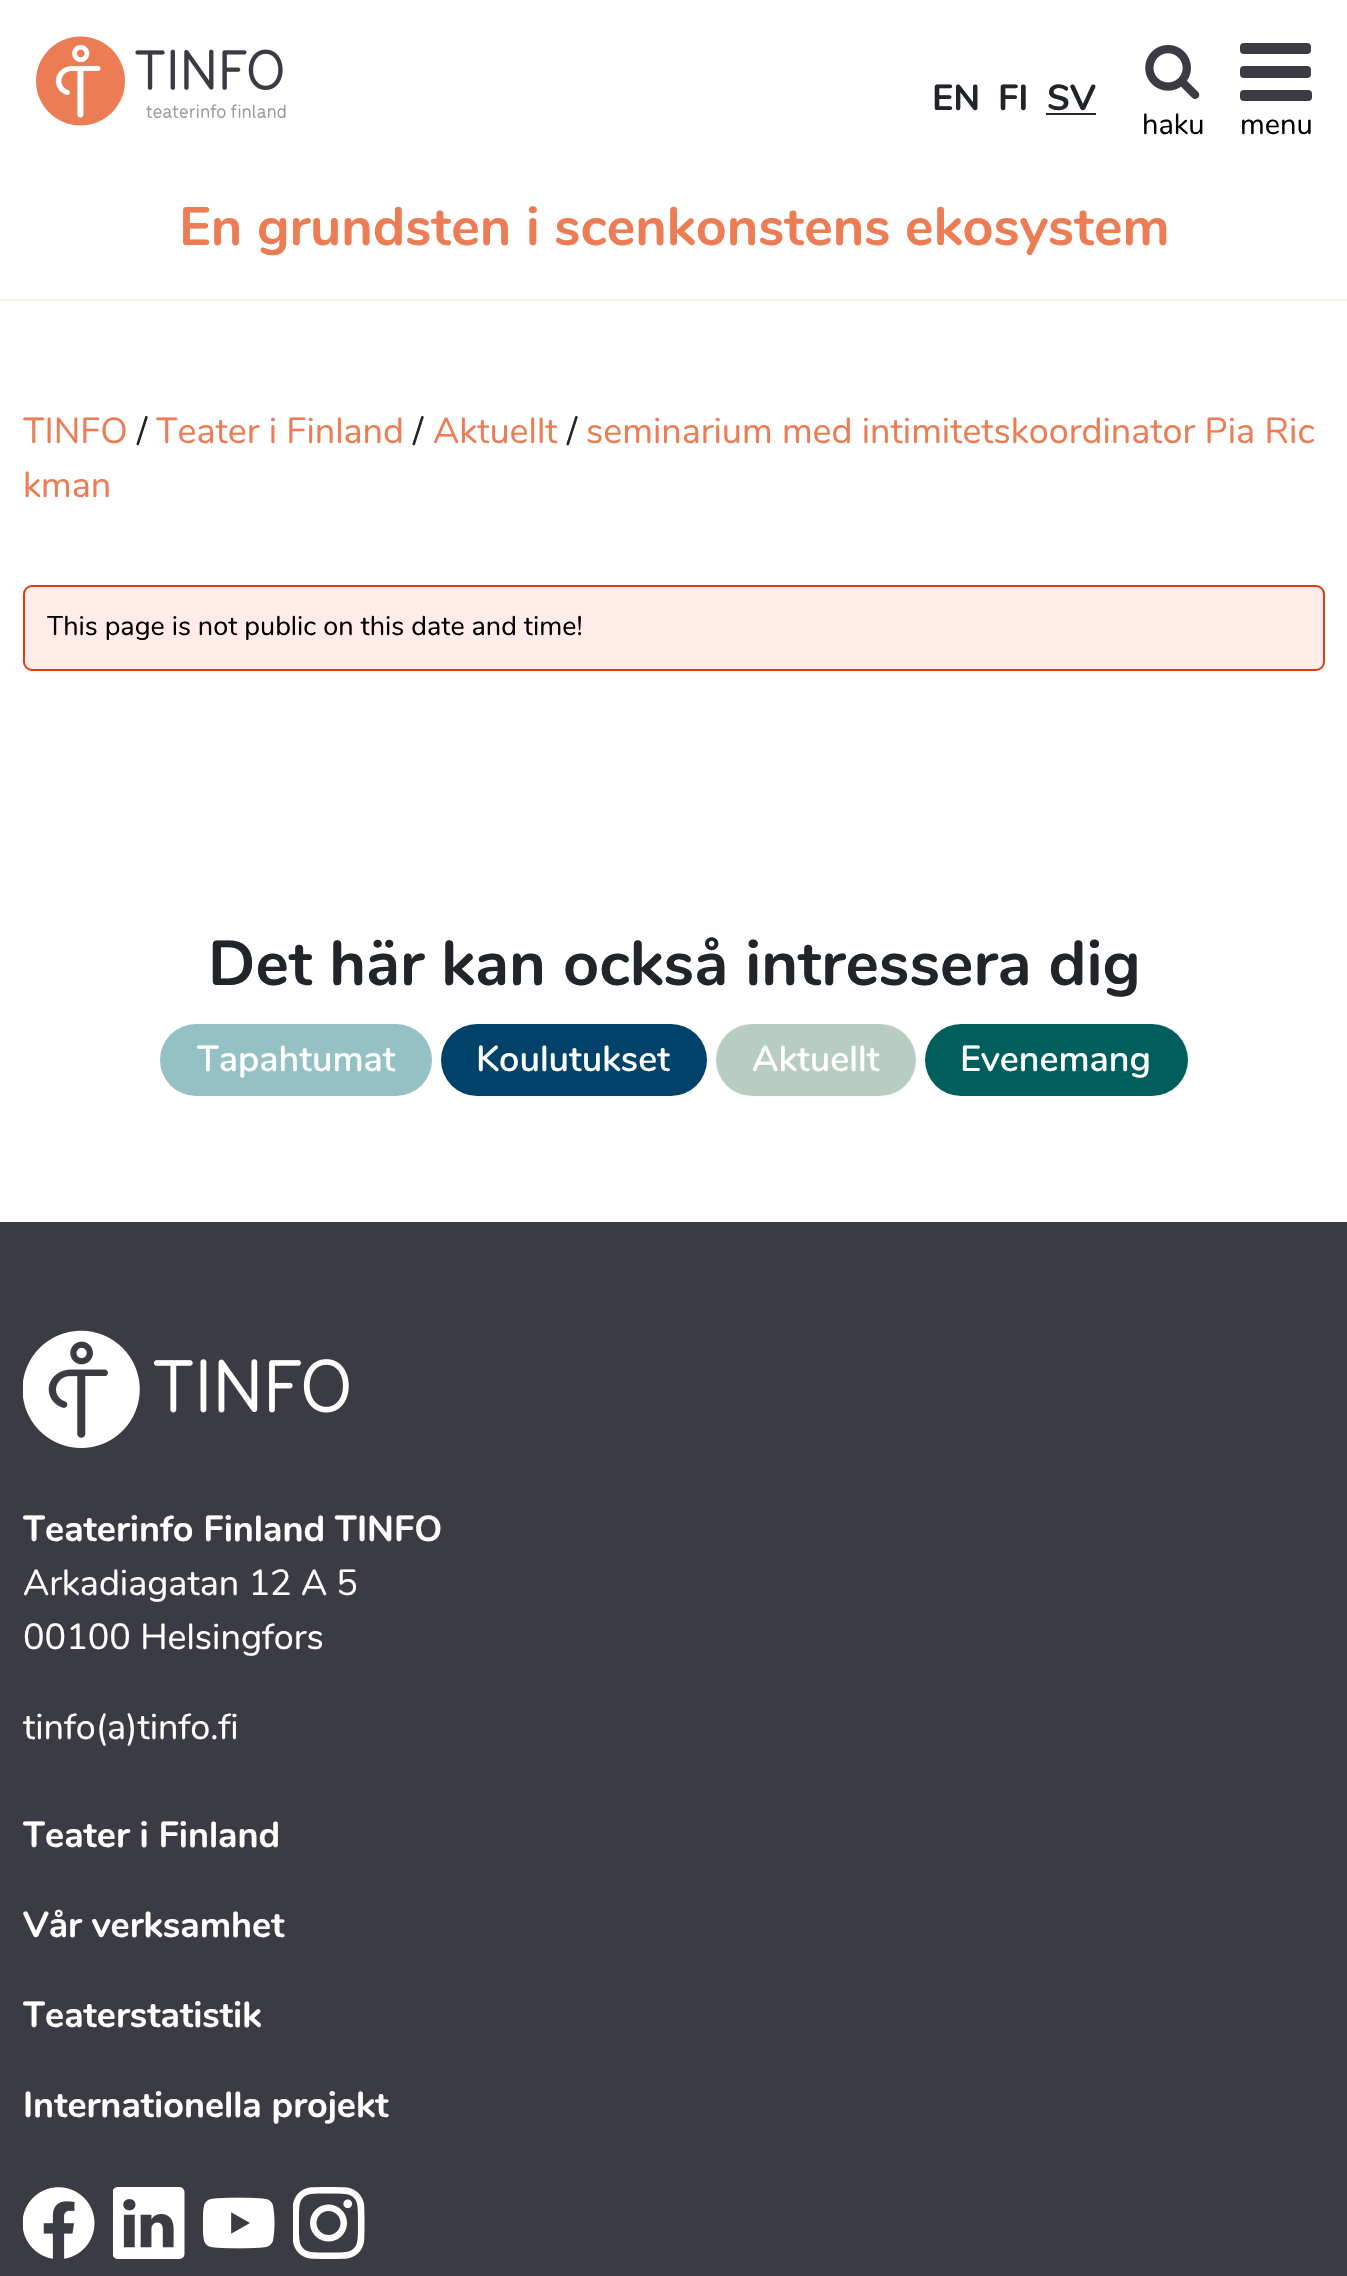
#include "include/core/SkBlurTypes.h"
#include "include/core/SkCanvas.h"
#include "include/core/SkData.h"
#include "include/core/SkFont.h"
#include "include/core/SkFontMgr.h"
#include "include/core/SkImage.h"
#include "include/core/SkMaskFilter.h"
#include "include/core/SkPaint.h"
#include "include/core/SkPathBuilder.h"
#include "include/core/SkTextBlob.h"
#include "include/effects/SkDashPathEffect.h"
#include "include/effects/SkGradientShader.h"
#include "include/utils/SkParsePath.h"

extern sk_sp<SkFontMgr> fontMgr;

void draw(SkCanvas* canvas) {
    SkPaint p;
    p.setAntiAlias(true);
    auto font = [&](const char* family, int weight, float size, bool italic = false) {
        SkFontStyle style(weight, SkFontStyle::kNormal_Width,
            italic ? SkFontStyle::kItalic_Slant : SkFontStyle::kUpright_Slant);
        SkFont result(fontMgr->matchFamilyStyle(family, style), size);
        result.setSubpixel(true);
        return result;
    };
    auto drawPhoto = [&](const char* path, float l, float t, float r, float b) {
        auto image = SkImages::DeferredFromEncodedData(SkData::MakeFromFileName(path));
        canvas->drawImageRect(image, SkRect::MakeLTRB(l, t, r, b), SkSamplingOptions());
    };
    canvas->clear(0xFF3B3C43);
    p.setColor(0xFFFFFFFF);
    canvas->drawRect(SkRect::MakeLTRB(0, 0, 1347, 1222), p);
    p.setColor(0xFFF6F4EA);
    canvas->drawRect(SkRect::MakeLTRB(0, 299, 1347, 301), p);
    drawPhoto("media/1.png", 36, 36, 286, 126);
    auto font1 = font("Nunito", 700, 36);
    p.setColor(0xFF212529);
    {
        const struct { const char* s; float x, y; } items[] = {
            {"EN", 932, 110},
            {"FI", 998, 110},
            {"SV", 1047, 110},
        };
        for (auto [s, x, y] : items) {
            canvas->drawString(s, x, y, font1, p);
        }
    }
    canvas->drawRect(SkRect::MakeLTRB(1046, 113, 1096, 115), p);
    drawPhoto("media/2.png", 1145, 45, 1200, 99);
    auto font2 = font("Nunito", 400, 29);
    p.setColor(0xFF000000);
    canvas->drawString("haku", 1142, 134, font2, p);
    p.setColor(0xFF3B3C43);
    canvas->drawRoundRect(SkRect::MakeLTRB(1240, 90, 1312, 101), 4, 4, p);
    canvas->drawRoundRect(SkRect::MakeLTRB(1240, 66, 1311, 78), 4, 4, p);
    canvas->drawRoundRect(SkRect::MakeLTRB(1240, 43, 1311, 54), 4, 4, p);
    p.setColor(0xFF000000);
    canvas->drawString("menu", 1240, 134, font2, p);
    auto font3 = font("Nunito", 700, 53.9f);
    p.setColor(0xFFEC7C54);
    canvas->drawString("En grundsten i scenkonstens ekosystem", 179, 245, font3, p);
    auto font4 = font("Nunito", 400, 36);
    canvas->drawString("TINFO", 23, 443, font4, p);
    p.setColor(0xFF212529);
    canvas->drawString("/", 137, 443, font4, p);
    p.setColor(0xFFEC7C54);
    canvas->drawString("Teater i Finland", 156, 443, font4, p);
    p.setColor(0xFF212529);
    canvas->drawString("/", 413, 443, font4, p);
    p.setColor(0xFFEC7C54);
    canvas->drawString("Aktuellt", 433, 443, font4, p);
    p.setColor(0xFF212529);
    canvas->drawString("/", 567, 443, font4, p);
    p.setColor(0xFFEC7C54);
    canvas->drawString("seminarium med intimitetskoordinator Pia Ric", 586, 443, font4, p);
    canvas->drawString("kman", 23, 497, font4, p);
    p.setColor(0xFFFFEBE8);
    canvas->drawRoundRect(SkRect::MakeLTRB(24, 586, 1324, 670), 8, 8, p);
    p.setStyle(SkPaint::kStroke_Style);
    p.setStrokeWidth(2);
    p.setColor(0xFFDD3C10);
    canvas->drawRoundRect(SkRect::MakeLTRB(24, 586, 1324, 670), 8, 8, p);
    auto font5 = font("Nunito", 400, 27);
    p.setStyle(SkPaint::kFill_Style);
    p.setColor(0xFF000000);
    canvas->drawString("This page is not public on this date and time!", 47, 635, font5, p);
    auto font6 = font("Nunito", 700, 63);
    p.setColor(0xFF212529);
    canvas->drawString("Det här kan också intressera dig", 208, 985, font6, p);
    p.setColor(0xFF94C2C4);
    canvas->drawRoundRect(SkRect::MakeLTRB(160, 1024, 432, 1096), 36, 36, p);
    auto font7 = font("Nunito", 600, 36);
    p.setColor(0xFFFFFFFF);
    canvas->drawString("Tapahtumat", 197, 1071, font7, p);
    p.setColor(0xFF01426A);
    canvas->drawRoundRect(SkRect::MakeLTRB(441, 1024, 707, 1096), 36, 36, p);
    p.setColor(0xFFFFFFFF);
    canvas->drawString("Koulutukset", 476, 1071, font7, p);
    p.setColor(0xFFB7CDC2);
    canvas->drawRoundRect(SkRect::MakeLTRB(716, 1024, 916, 1096), 36, 36, p);
    p.setColor(0xFFFFFFFF);
    canvas->drawString("Aktuellt", 752, 1071, font7, p);
    p.setColor(0xFF005E5D);
    canvas->drawRoundRect(SkRect::MakeLTRB(925, 1024, 1188, 1096), 36, 36, p);
    p.setColor(0xFFFFFFFF);
    canvas->drawString("Evenemang", 960, 1071, font7, p);
    drawPhoto("media/3.png", 23, 1330, 349, 1448);
    canvas->drawString("Teaterinfo Finland TINFO", 23, 1541, font1, p);
    {
        const struct { const char* s; float x, y; } items[] = {
            {"Arkadiagatan 12 A 5", 23, 1595},
            {"00100 Helsingfors", 23, 1649},
            {"tinfo(a)tinfo.fi", 23, 1739},
        };
        for (auto [s, x, y] : items) {
            canvas->drawString(s, x, y, font4, p);
        }
    }
    {
        const struct { const char* s; float x, y; } items[] = {
            {"Teater i Finland", 23, 1847},
            {"Vår verksamhet", 23, 1937},
            {"Teaterstatistik", 23, 2027},
            {"Internationella projekt", 23, 2117},
        };
        for (auto [s, x, y] : items) {
            canvas->drawString(s, x, y, font1, p);
        }
    }
    drawPhoto("media/4.png", 23, 2187, 95, 2259);
    drawPhoto("media/5.png", 113, 2187, 185, 2259);
    drawPhoto("media/6.png", 203, 2197, 275, 2249);
    drawPhoto("media/7.png", 293, 2187, 365, 2259);
}
